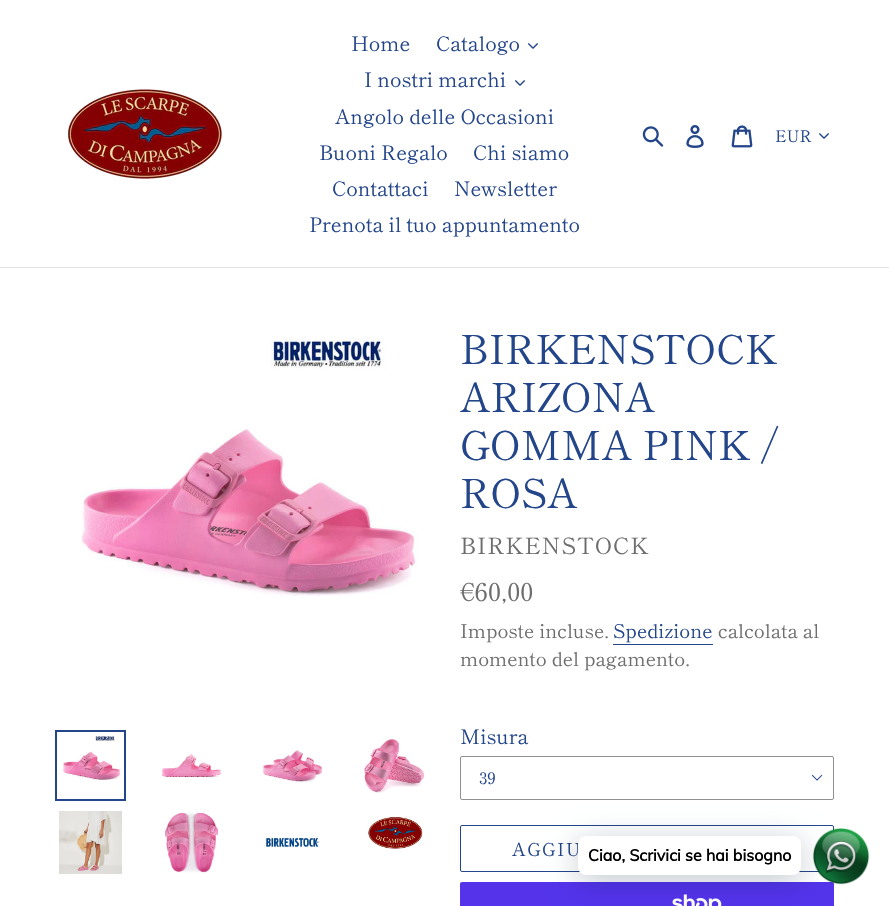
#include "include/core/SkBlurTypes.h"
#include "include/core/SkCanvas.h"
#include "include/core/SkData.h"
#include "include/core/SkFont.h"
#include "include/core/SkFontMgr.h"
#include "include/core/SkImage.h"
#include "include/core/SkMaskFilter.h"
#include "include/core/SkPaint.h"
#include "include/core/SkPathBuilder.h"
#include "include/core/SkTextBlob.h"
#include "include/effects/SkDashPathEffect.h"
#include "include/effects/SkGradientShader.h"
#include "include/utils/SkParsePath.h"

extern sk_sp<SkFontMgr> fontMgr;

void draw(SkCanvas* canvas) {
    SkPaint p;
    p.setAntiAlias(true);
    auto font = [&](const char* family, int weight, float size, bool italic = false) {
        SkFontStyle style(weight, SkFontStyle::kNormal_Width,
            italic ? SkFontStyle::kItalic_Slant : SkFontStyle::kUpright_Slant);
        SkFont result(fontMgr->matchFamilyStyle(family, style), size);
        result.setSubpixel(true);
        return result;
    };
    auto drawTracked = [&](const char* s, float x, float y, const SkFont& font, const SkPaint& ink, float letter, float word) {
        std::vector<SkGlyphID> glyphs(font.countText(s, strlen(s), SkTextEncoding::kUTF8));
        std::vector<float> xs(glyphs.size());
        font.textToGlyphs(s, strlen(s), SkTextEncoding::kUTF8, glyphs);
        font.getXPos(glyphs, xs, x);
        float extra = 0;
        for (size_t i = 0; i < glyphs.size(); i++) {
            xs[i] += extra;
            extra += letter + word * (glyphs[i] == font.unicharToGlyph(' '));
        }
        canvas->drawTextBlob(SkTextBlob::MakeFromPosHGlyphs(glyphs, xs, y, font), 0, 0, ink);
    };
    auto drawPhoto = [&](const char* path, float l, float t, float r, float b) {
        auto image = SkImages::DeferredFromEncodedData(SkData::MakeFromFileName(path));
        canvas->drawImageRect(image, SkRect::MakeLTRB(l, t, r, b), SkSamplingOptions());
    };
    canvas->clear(0xFFFFFFFF);
    p.setColor(0xFFE4E4E4);
    canvas->drawRect(SkRect::MakeLTRB(0, 267, 889, 268), p);
    drawPhoto("media/1.png", 67, 89, 222, 179);
    auto font1 = font("Shippori Mincho", 400, 20);
    p.setColor(0xFF23458A);
    canvas->drawString("Home", 351, 51, font1, p);
    canvas->drawString("Catalogo", 436, 51, font1, p);
    drawPhoto("media/2.png", 528, 43, 538, 49);
    canvas->drawString("I nostri marchi", 364, 87, font1, p);
    drawPhoto("media/2.png", 515, 80, 525, 86);
    {
        const struct { const char* s; float x, y; } items[] = {
            {"Angolo delle Occasioni", 335, 124},
            {"Buoni Regalo", 319, 160},
            {"Chi siamo", 473, 160},
            {"Contattaci", 332, 196},
            {"Newsletter", 454, 196},
            {"Prenota il tuo appuntamento", 309, 232},
        };
        for (auto [s, x, y] : items) {
            canvas->drawString(s, x, y, font1, p);
        }
    }
    drawPhoto("media/3.png", 642, 126, 664, 147);
    drawPhoto("media/4.png", 686, 125, 704, 148);
    drawPhoto("media/5.png", 731, 125, 753, 148);
    auto font2 = font("Shippori Mincho", 400, 16);
    canvas->drawString("EUR", 775, 142, font2, p);
    drawPhoto("media/2.png", 819, 133, 829, 139);
    drawPhoto("media/6.png", 81, 338, 418, 596);
    p.setStyle(SkPaint::kStroke_Style);
    p.setStrokeWidth(2);
    canvas->drawRect(SkRect::MakeLTRB(56, 731, 125, 800), p);
    drawPhoto("media/7.png", 63, 736, 121, 780);
    drawPhoto("media/8.png", 162, 754, 222, 778);
    drawPhoto("media/9.png", 263, 750, 323, 782);
    drawPhoto("media/10.png", 364, 739, 425, 793);
    drawPhoto("media/11.png", 59, 811, 122, 874);
    drawPhoto("media/12.png", 165, 812, 219, 873);
    drawPhoto("media/13.png", 266, 837, 319, 848);
    drawPhoto("media/14.png", 368, 816, 423, 849);
    auto font3 = font("Shippori Mincho", 400, 40);
    p.setStyle(SkPaint::kFill_Style);
    {
        const struct { const char* s; float x, y; } items[] = {
            {"BIRKENSTOCK", 460, 364},
            {"ARIZONA", 460, 412},
            {"GOMMA PINK /", 460, 460},
            {"ROSA", 460, 508},
        };
        for (auto [s, x, y] : items) {
            canvas->drawString(s, x, y, font3, p);
        }
    }
    auto font4 = font("Shippori Mincho", 400, 22.5f);
    p.setColor(0xFF6D6D6D);
    drawTracked("BIRKENSTOCK", 460, 554, font4, p, 1, 0);
    auto font5 = font("Shippori Mincho", 400, 25);
    canvas->drawString("€60,00", 460, 601, font5, p);
    auto font6 = font("Shippori Mincho", 400, 19);
    canvas->drawString("Imposte incluse.", 460, 638, font6, p);
    p.setColor(0xFF23458A);
    canvas->drawString("Spedizione", 613, 638, font6, p);
    canvas->drawRect(SkRect::MakeLTRB(613, 644, 713, 645), p);
    p.setColor(0xFF6D6D6D);
    canvas->drawString("calcolata al", 718, 638, font6, p);
    canvas->drawString("momento del pagamento.", 460, 666, font6, p);
    p.setColor(0xFF23458A);
    canvas->drawString("Misura", 460, 744, font1, p);
    drawPhoto("media/15.png", 811, 774, 823, 781);
    p.setStyle(SkPaint::kStroke_Style);
    p.setStrokeWidth(1);
    p.setColor(0xFF909090);
    canvas->drawRoundRect(SkRect::MakeLTRB(460.5f, 756.5f, 833.5f, 799.5f), 1.5f, 1.5f, p);
    p.setStyle(SkPaint::kFill_Style);
    p.setColor(0xFF23458A);
    canvas->drawString("39", 479, 784, font2, p);
    p.setStyle(SkPaint::kStroke_Style);
    canvas->drawRoundRect(SkRect::MakeLTRB(460.5f, 825.5f, 833.5f, 871.5f), 1.5f, 1.5f, p);
    auto font7 = font("Shippori Mincho", 400, 18);
    p.setStyle(SkPaint::kFill_Style);
    drawTracked("AGGIU", 512, 856, font7, p, 1.5f, 0);
    p.setColor(0xFF5433EB);
    canvas->drawRoundRect(SkRect::MakeLTRB(460, 882, 834, 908), 2, 2, p);
    drawPhoto("media/16.png", 672, 894, 722, 906);
    drawPhoto("media/17.png", 812, 828, 870, 885);
    p.setColor(0x3D00122E);
    p.setMaskFilter(SkMaskFilter::MakeBlur(kNormal_SkBlurStyle, 16));
    canvas->drawRoundRect(SkRect::MakeLTRB(578, 842, 801, 881), 8, 8, p);
    p.setMaskFilter(nullptr);
    p.setColor(0xFFFFFFFF);
    canvas->drawRoundRect(SkRect::MakeLTRB(578, 836, 801, 875), 8, 8, p);
    auto font8 = font("Muli", 700, 16);
    p.setColor(0xFF000000);
    canvas->drawString("Ciao, Scrivici se hai bisogno", 588, 861, font8, p);
}
